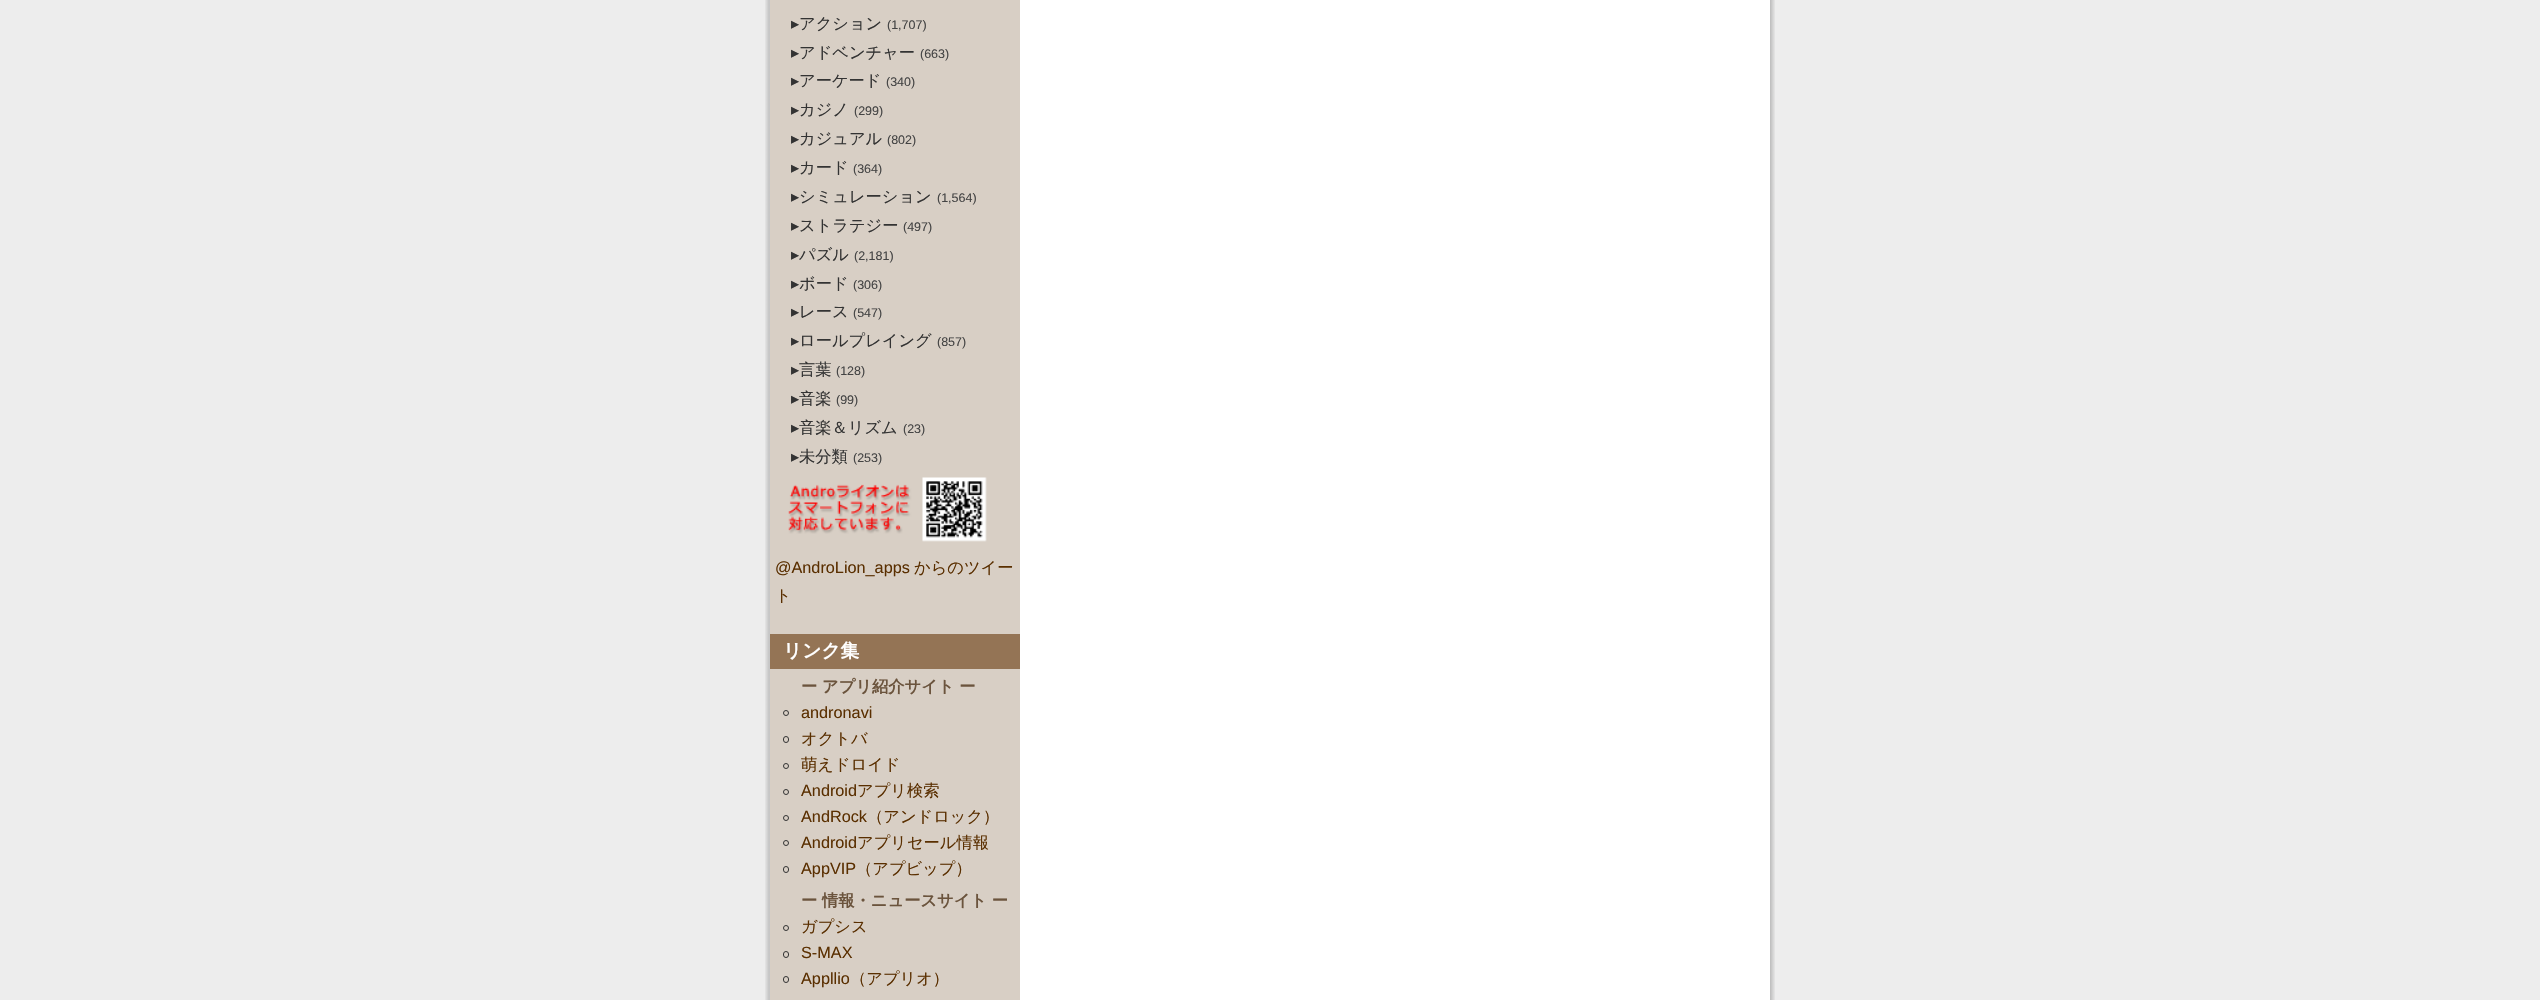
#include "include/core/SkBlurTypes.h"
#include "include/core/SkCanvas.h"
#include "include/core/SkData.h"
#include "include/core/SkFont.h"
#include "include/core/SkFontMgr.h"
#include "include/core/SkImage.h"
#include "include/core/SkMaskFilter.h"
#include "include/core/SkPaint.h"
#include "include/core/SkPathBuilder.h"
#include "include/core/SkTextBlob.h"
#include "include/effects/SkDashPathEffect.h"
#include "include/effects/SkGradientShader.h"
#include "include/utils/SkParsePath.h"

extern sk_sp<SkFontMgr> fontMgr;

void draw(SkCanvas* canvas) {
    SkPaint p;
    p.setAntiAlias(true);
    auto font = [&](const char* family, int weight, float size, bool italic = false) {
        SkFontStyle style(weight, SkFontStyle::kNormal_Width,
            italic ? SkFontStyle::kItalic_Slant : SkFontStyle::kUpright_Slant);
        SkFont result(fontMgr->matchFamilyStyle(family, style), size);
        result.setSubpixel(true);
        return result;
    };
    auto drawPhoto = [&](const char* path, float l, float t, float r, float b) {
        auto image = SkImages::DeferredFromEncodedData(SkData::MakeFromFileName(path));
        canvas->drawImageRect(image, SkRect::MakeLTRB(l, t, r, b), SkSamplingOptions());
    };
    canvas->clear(0xFFEDEDED);
    drawPhoto("media/1.png", 765, 0, 1775, 1000);
    p.setColor(0xFFD8CFC5);
    canvas->drawRect(SkRect::MakeLTRB(770, 0, 1020, 1000), p);
    auto font1 = font("DejaVu Sans", 400, 16.25f);
    p.setColor(0xFF333333);
    canvas->drawString("▸", 791, 29, font1, p);
    auto font2 = font("WenQuanYi Zen Hei", 500, 16.25f);
    canvas->drawString("アクション", 799, 29, font2, p);
    auto font3 = font("Liberation Sans", 400, 12.5f);
    p.setColor(0xFF444444);
    canvas->drawString("(1,707)", 887, 29, font3, p);
    p.setColor(0xFF333333);
    canvas->drawString("▸", 791, 58, font1, p);
    canvas->drawString("アドベンチャー", 799, 58, font2, p);
    p.setColor(0xFF444444);
    canvas->drawString("(663)", 920, 58, font3, p);
    p.setColor(0xFF333333);
    canvas->drawString("▸", 791, 86, font1, p);
    canvas->drawString("アーケード", 799, 86, font2, p);
    p.setColor(0xFF444444);
    canvas->drawString("(340)", 886, 86, font3, p);
    p.setColor(0xFF333333);
    canvas->drawString("▸", 791, 115, font1, p);
    canvas->drawString("カジノ", 799, 115, font2, p);
    p.setColor(0xFF444444);
    canvas->drawString("(299)", 854, 115, font3, p);
    p.setColor(0xFF333333);
    canvas->drawString("▸", 791, 144, font1, p);
    canvas->drawString("カジュアル", 799, 144, font2, p);
    p.setColor(0xFF444444);
    canvas->drawString("(802)", 887, 144, font3, p);
    p.setColor(0xFF333333);
    canvas->drawString("▸", 791, 173, font1, p);
    canvas->drawString("カード", 799, 173, font2, p);
    p.setColor(0xFF444444);
    canvas->drawString("(364)", 853, 173, font3, p);
    p.setColor(0xFF333333);
    canvas->drawString("▸", 791, 202, font1, p);
    canvas->drawString("シミュレーション", 799, 202, font2, p);
    p.setColor(0xFF444444);
    canvas->drawString("(1,564)", 937, 202, font3, p);
    p.setColor(0xFF333333);
    canvas->drawString("▸", 791, 231, font1, p);
    canvas->drawString("ストラテジー", 799, 231, font2, p);
    p.setColor(0xFF444444);
    canvas->drawString("(497)", 903, 231, font3, p);
    p.setColor(0xFF333333);
    canvas->drawString("▸", 791, 260, font1, p);
    canvas->drawString("パズル", 799, 260, font2, p);
    p.setColor(0xFF444444);
    canvas->drawString("(2,181)", 854, 260, font3, p);
    p.setColor(0xFF333333);
    canvas->drawString("▸", 791, 289, font1, p);
    canvas->drawString("ボード", 799, 289, font2, p);
    p.setColor(0xFF444444);
    canvas->drawString("(306)", 853, 289, font3, p);
    p.setColor(0xFF333333);
    canvas->drawString("▸", 791, 317, font1, p);
    canvas->drawString("レース", 799, 317, font2, p);
    p.setColor(0xFF444444);
    canvas->drawString("(547)", 853, 317, font3, p);
    p.setColor(0xFF333333);
    canvas->drawString("▸", 791, 346, font1, p);
    canvas->drawString("ロールプレイング", 799, 346, font2, p);
    p.setColor(0xFF444444);
    canvas->drawString("(857)", 937, 346, font3, p);
    p.setColor(0xFF333333);
    canvas->drawString("▸", 791, 375, font1, p);
    canvas->drawString("言葉", 799, 375, font2, p);
    p.setColor(0xFF444444);
    canvas->drawString("(128)", 836, 375, font3, p);
    p.setColor(0xFF333333);
    canvas->drawString("▸", 791, 404, font1, p);
    canvas->drawString("音楽", 799, 404, font2, p);
    p.setColor(0xFF444444);
    canvas->drawString("(99)", 836, 404, font3, p);
    p.setColor(0xFF333333);
    canvas->drawString("▸", 791, 433, font1, p);
    canvas->drawString("音楽＆リズム", 799, 433, font2, p);
    p.setColor(0xFF444444);
    canvas->drawString("(23)", 903, 433, font3, p);
    p.setColor(0xFF333333);
    canvas->drawString("▸", 791, 462, font1, p);
    canvas->drawString("未分類", 799, 462, font2, p);
    p.setColor(0xFF444444);
    canvas->drawString("(253)", 853, 462, font3, p);
    drawPhoto("media/2.png", 788, 477, 987, 542);
    auto font4 = font("Liberation Sans", 400, 16.25f);
    p.setColor(0xFF5A2F00);
    canvas->drawString("@AndroLion_apps", 775, 573, font4, p);
    canvas->drawString("からのツイー", 914, 573, font2, p);
    canvas->drawString("ト", 775, 601, font2, p);
    p.setColor(0xFF947455);
    canvas->drawRect(SkRect::MakeLTRB(770, 634, 1020, 669), p);
    auto font5 = font("WenQuanYi Zen Hei", 700, 18.75f);
    p.setColor(0xFFFFFFFF);
    canvas->drawString("リンク集", 783, 657, font5, p);
    auto font6 = font("WenQuanYi Zen Hei", 700, 16.25f);
    p.setColor(0xFF6B543D);
    canvas->drawString("ー アプリ紹介サイト ー", 801, 692, font6, p);
    p.setStyle(SkPaint::kStroke_Style);
    p.setStrokeWidth(1);
    p.setColor(0xFF333333);
    canvas->drawCircle(786, 713, 2.5f, p);
    p.setStyle(SkPaint::kFill_Style);
    p.setColor(0xFF5A2F00);
    canvas->drawString("andronavi", 801, 718, font4, p);
    p.setStyle(SkPaint::kStroke_Style);
    p.setColor(0xFF333333);
    canvas->drawRoundRect(SkRect::MakeLTRB(783.5f, 736.5f, 788.5f, 742.5f), 2.5f, 2.5f, p);
    p.setStyle(SkPaint::kFill_Style);
    p.setColor(0xFF5A2F00);
    canvas->drawString("オクトバ", 801, 744, font2, p);
    p.setStyle(SkPaint::kStroke_Style);
    p.setColor(0xFF333333);
    canvas->drawCircle(786, 766, 2.5f, p);
    p.setStyle(SkPaint::kFill_Style);
    p.setColor(0xFF5A2F00);
    canvas->drawString("萌えドロイド", 801, 770, font2, p);
    p.setStyle(SkPaint::kStroke_Style);
    p.setColor(0xFF333333);
    canvas->drawCircle(786, 792, 2.5f, p);
    p.setStyle(SkPaint::kFill_Style);
    p.setColor(0xFF5A2F00);
    canvas->drawString("Android", 801, 796, font4, p);
    canvas->drawString("アプリ検索", 857, 796, font2, p);
    p.setStyle(SkPaint::kStroke_Style);
    p.setColor(0xFF333333);
    canvas->drawCircle(786, 818, 2.5f, p);
    p.setStyle(SkPaint::kFill_Style);
    p.setColor(0xFF5A2F00);
    canvas->drawString("AndRock", 801, 822, font4, p);
    canvas->drawString("（アンドロック）", 867, 822, font2, p);
    p.setStyle(SkPaint::kStroke_Style);
    p.setColor(0xFF333333);
    canvas->drawCircle(786, 843, 2.5f, p);
    p.setStyle(SkPaint::kFill_Style);
    p.setColor(0xFF5A2F00);
    canvas->drawString("Android", 801, 848, font4, p);
    canvas->drawString("アプリセール情報", 857, 848, font2, p);
    p.setStyle(SkPaint::kStroke_Style);
    p.setColor(0xFF333333);
    canvas->drawRoundRect(SkRect::MakeLTRB(783.5f, 866.5f, 788.5f, 872.5f), 2.5f, 2.5f, p);
    p.setStyle(SkPaint::kFill_Style);
    p.setColor(0xFF5A2F00);
    canvas->drawString("AppVIP", 801, 874, font4, p);
    canvas->drawString("（アプビップ）", 856, 874, font2, p);
    p.setColor(0xFF6B543D);
    canvas->drawString("ー 情報・ニュースサイト ー", 801, 906, font6, p);
    p.setStyle(SkPaint::kStroke_Style);
    p.setColor(0xFF333333);
    canvas->drawCircle(786, 928, 2.5f, p);
    p.setStyle(SkPaint::kFill_Style);
    p.setColor(0xFF5A2F00);
    canvas->drawString("ガプシス", 801, 932, font2, p);
    p.setStyle(SkPaint::kStroke_Style);
    p.setColor(0xFF333333);
    canvas->drawRoundRect(SkRect::MakeLTRB(783.5f, 951.5f, 788.5f, 957.5f), 2.5f, 2.5f, p);
    p.setStyle(SkPaint::kFill_Style);
    p.setColor(0xFF5A2F00);
    canvas->drawString("S-MAX", 801, 958, font4, p);
    p.setStyle(SkPaint::kStroke_Style);
    p.setColor(0xFF333333);
    canvas->drawRoundRect(SkRect::MakeLTRB(783.5f, 976.5f, 788.5f, 982.5f), 2.5f, 2.5f, p);
    p.setStyle(SkPaint::kFill_Style);
    p.setColor(0xFF5A2F00);
    canvas->drawString("Appllio", 801, 984, font4, p);
    canvas->drawString("（アプリオ）", 850, 984, font2, p);
    p.setColor(0xFFFFFFFF);
    canvas->drawRect(SkRect::MakeLTRB(1768, 0, 1770, 1000), p);
}
